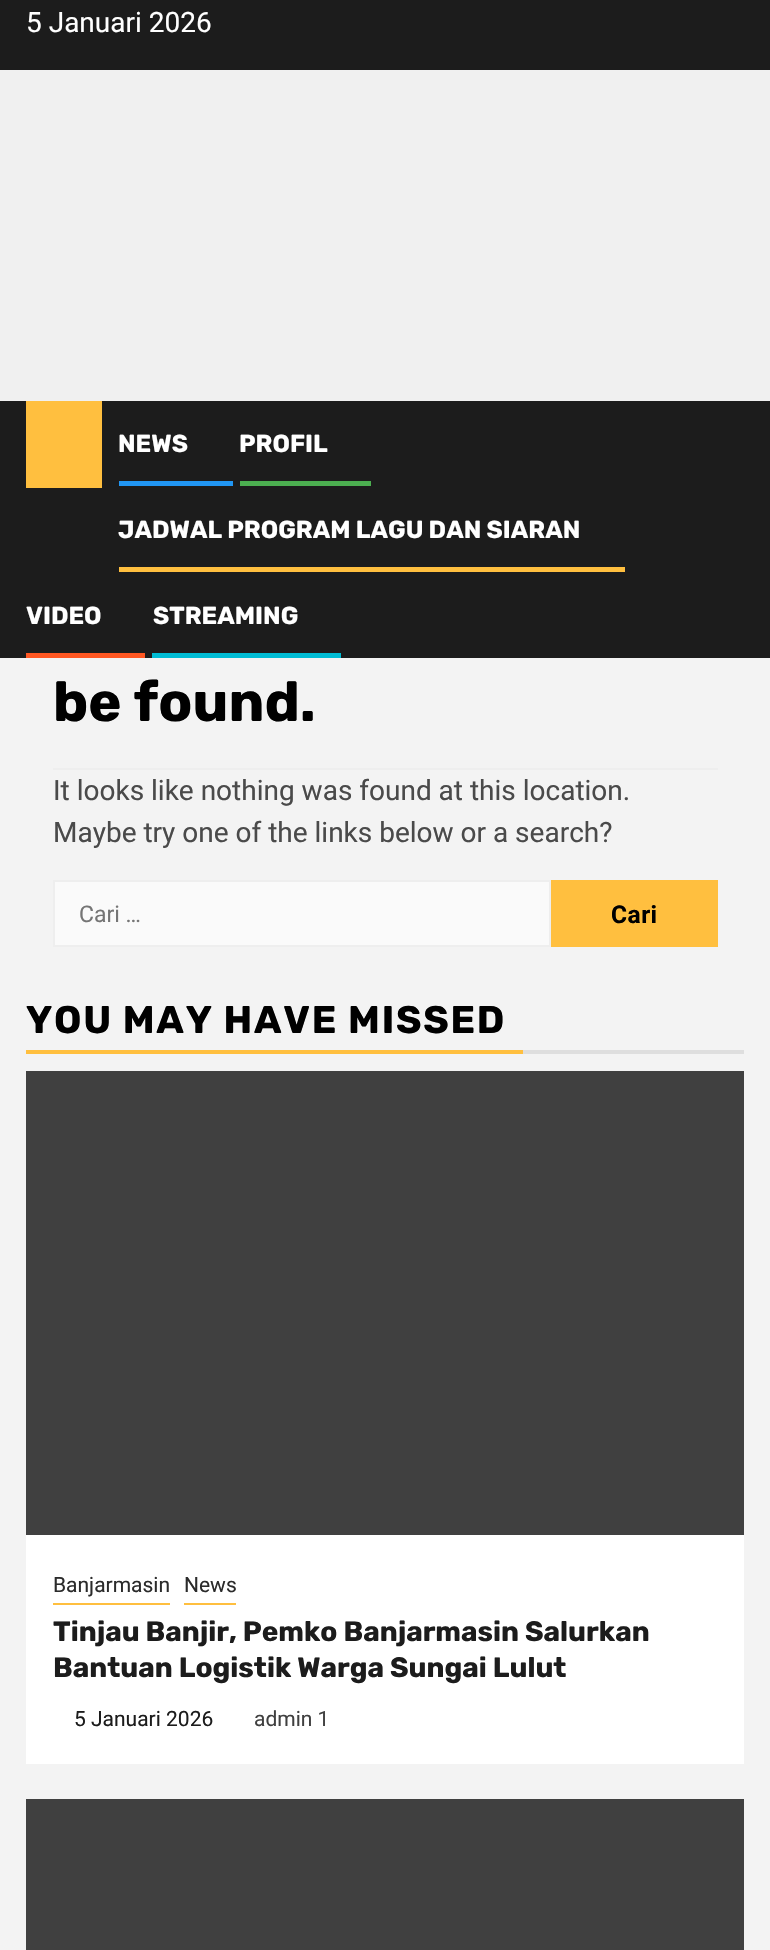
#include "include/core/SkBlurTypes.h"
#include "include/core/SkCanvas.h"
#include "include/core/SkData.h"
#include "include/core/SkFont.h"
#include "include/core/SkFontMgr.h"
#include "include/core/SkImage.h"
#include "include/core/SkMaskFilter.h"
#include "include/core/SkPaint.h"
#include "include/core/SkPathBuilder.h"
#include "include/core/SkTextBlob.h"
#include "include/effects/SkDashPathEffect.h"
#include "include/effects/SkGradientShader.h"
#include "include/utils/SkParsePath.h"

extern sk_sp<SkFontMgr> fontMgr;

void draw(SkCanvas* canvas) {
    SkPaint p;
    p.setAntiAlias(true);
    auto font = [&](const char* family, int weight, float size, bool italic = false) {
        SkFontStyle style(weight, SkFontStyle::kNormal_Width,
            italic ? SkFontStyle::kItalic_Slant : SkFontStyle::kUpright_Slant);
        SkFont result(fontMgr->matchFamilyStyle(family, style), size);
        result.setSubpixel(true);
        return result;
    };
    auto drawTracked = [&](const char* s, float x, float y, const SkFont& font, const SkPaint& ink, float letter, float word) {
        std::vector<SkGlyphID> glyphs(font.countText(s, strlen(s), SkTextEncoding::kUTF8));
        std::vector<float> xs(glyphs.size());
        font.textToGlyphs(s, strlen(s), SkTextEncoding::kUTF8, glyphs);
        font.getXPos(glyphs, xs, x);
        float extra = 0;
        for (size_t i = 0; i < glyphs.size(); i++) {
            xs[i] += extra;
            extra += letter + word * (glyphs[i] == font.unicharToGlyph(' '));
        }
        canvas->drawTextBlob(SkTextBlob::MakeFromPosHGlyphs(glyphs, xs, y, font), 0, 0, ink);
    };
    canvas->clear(0xFFF3F3F3);
    p.setColor(0xFFF0F0F0);
    canvas->drawRect(SkRect::MakeLTRB(0, 70, 770, 401), p);
    p.setColor(0xFF1C1C1C);
    canvas->drawRect(SkRect::MakeLTRB(0, 0, 770, 70), p);
    auto font1 = font("Roboto", 400, 28);
    p.setColor(0xFFFFFFFF);
    canvas->drawString("5 Januari 2026", 26, 32, font1, p);
    p.setColor(0xFF1C1C1C);
    canvas->drawRect(SkRect::MakeLTRB(0, 401, 770, 658), p);
    p.setColor(0xFFFFBF3F);
    canvas->drawRect(SkRect::MakeLTRB(26, 401, 102, 488), p);
    auto font2 = font("Rubik", 700, 24.5f);
    p.setColor(0xFFFFFFFF);
    canvas->drawString("NEWS", 118, 452, font2, p);
    p.setColor(0xFF2196F3);
    canvas->drawRect(SkRect::MakeLTRB(119, 481, 233, 486), p);
    p.setColor(0xFFFFFFFF);
    canvas->drawString("PROFIL", 239, 452, font2, p);
    p.setColor(0xFF4CAF50);
    canvas->drawRect(SkRect::MakeLTRB(240, 481, 371, 486), p);
    p.setColor(0xFFFFFFFF);
    canvas->drawString("JADWAL PROGRAM LAGU DAN SIARAN", 118, 538, font2, p);
    p.setColor(0xFFFFBF3F);
    canvas->drawRect(SkRect::MakeLTRB(119, 567, 625, 572), p);
    p.setColor(0xFFFFFFFF);
    canvas->drawString("VIDEO", 26, 624, font2, p);
    p.setColor(0xFFFF5722);
    canvas->drawRect(SkRect::MakeLTRB(26, 653, 145, 658), p);
    p.setColor(0xFFFFFFFF);
    canvas->drawString("STREAMING", 153, 624, font2, p);
    p.setColor(0xFF00BCD4);
    canvas->drawRect(SkRect::MakeLTRB(152, 653, 341, 658), p);
    p.setColor(0xFFEEEEEE);
    canvas->drawRect(SkRect::MakeLTRB(53, 768, 718, 770), p);
    auto font3 = font("Rubik", 700, 56);
    p.setColor(0xFF000000);
    canvas->drawString("be found.", 53, 721, font3, p);
    p.setColor(0xFF4A4A4A);
    canvas->drawString("It looks like nothing was found at this location.", 53, 800, font1, p);
    canvas->drawString("Maybe try one of the links below or a search?", 53, 842, font1, p);
    p.setColor(0xFFFAFAFA);
    canvas->drawRect(SkRect::MakeLTRB(54, 881, 550, 946), p);
    p.setStyle(SkPaint::kStroke_Style);
    p.setStrokeWidth(2);
    p.setColor(0xFFEEEEEE);
    canvas->drawRect(SkRect::MakeLTRB(54, 881, 550, 946), p);
    auto font4 = font("Roboto", 400, 23);
    p.setStyle(SkPaint::kFill_Style);
    p.setColor(0xFF757575);
    canvas->drawString("Cari …", 79, 922, font4, p);
    p.setColor(0xFFFFBF3F);
    canvas->drawRect(SkRect::MakeLTRB(551, 880, 718, 947), p);
    auto font5 = font("Roboto", 700, 24.5f);
    p.setColor(0xFF000000);
    drawTracked("Cari", 611, 923, font5, p, 0.5f, 0);
    p.setColor(0xFFFFBF3F);
    canvas->drawRect(SkRect::MakeLTRB(26, 1050, 523, 1054), p);
    auto font6 = font("Rubik", 700, 38.5f);
    p.setColor(0xFF000000);
    drawTracked("YOU MAY HAVE MISSED", 26, 1033, font6, p, 1.75f, 0);
    {
        const struct { float l, t, r, b; SkColor color; } items[] = {
            {523, 1050, 744, 1054, 0xFFDEDEDE},
            {26, 1535, 744, 1764, 0xFFFFFFFF},
            {26, 1071, 744, 1535, 0xFF404040},
            {53, 1603, 170, 1605, 0xFFFFBF3F},
        };
        for (auto [l, t, r, b, color] : items) {
            p.setColor(color);
            canvas->drawRect(SkRect::MakeLTRB(l, t, r, b), p);
        }
    }
    auto font7 = font("Roboto", 400, 21);
    p.setColor(0xFF2B2B2B);
    canvas->drawString("Banjarmasin", 53, 1592, font7, p);
    p.setColor(0xFFFFBF3F);
    canvas->drawRect(SkRect::MakeLTRB(184, 1603, 236, 1605), p);
    p.setColor(0xFF2B2B2B);
    canvas->drawString("News", 184, 1592, font7, p);
    auto font8 = font("Rubik", 700, 28);
    p.setColor(0xFF1C1C1C);
    canvas->drawString("Tinjau Banjir, Pemko Banjarmasin Salurkan", 53, 1641, font8, p);
    canvas->drawString("Bantuan Logistik Warga Sungai Lulut", 53, 1677, font8, p);
    canvas->drawString("5 Januari 2026", 74, 1726, font7, p);
    p.setColor(0xFF404040);
    canvas->drawString("admin 1", 254, 1726, font7, p);
    canvas->drawRect(SkRect::MakeLTRB(26, 1799, 744, 1950), p);
}
